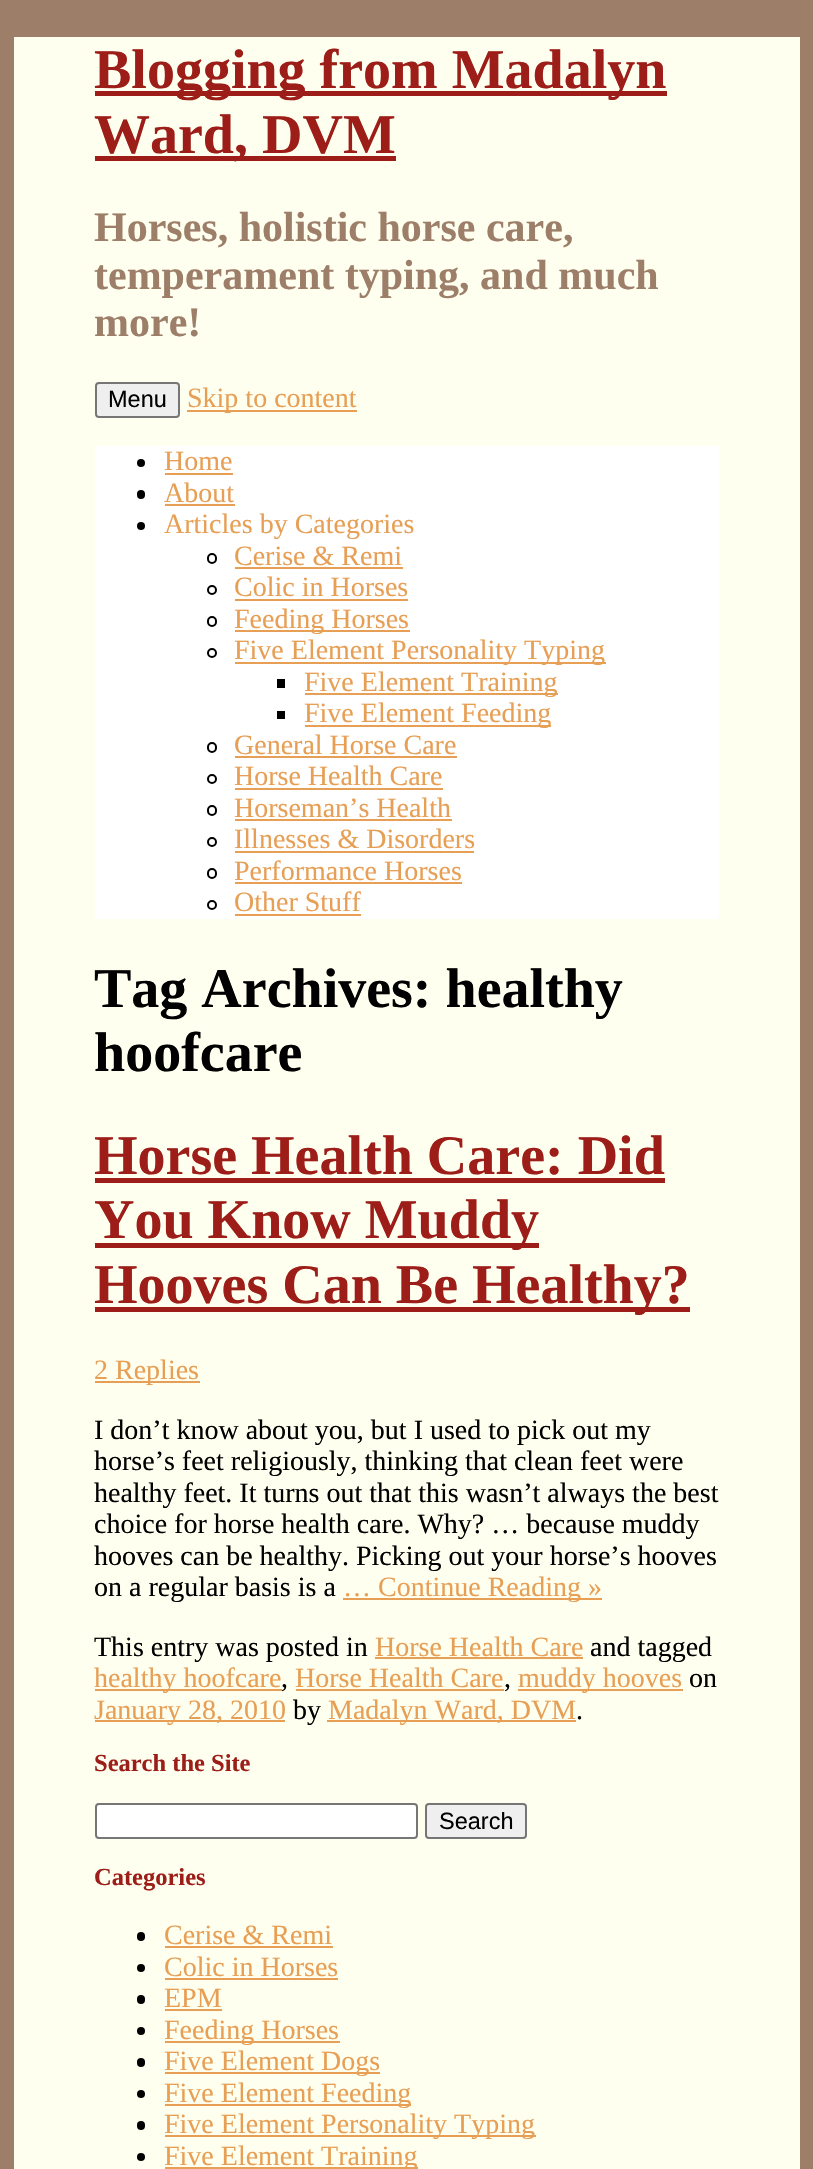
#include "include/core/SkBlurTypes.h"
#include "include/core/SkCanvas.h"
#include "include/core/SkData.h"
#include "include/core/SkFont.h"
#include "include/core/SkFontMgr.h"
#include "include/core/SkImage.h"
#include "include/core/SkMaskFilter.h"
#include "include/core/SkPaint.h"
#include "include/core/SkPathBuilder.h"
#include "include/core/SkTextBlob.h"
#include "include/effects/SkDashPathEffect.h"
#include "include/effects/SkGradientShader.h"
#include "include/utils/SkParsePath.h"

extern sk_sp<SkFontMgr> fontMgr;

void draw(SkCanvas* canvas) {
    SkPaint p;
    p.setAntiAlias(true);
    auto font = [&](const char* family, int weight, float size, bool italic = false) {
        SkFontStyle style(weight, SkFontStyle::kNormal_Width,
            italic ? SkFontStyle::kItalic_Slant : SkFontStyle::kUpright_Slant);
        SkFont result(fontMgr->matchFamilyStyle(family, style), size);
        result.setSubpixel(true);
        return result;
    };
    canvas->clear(0xFF9D7E69);
    p.setColor(0xFFFFFFF0);
    canvas->drawRect(SkRect::MakeLTRB(14, 37, 800, 2169), p);
    p.setColor(0xFF9D1E18);
    canvas->drawRect(SkRect::MakeLTRB(95, 91, 667, 96), p);
    auto font1 = font("Liberation Serif", 700, 56);
    canvas->drawString("Blogging from Madalyn", 94, 88, font1, p);
    canvas->drawRect(SkRect::MakeLTRB(95, 156, 396, 161), p);
    canvas->drawString("Ward, DVM", 94, 153, font1, p);
    auto font2 = font("Liberation Serif", 700, 42);
    p.setColor(0xFF9D7E69);
    {
        const struct { const char* s; float x, y; } items[] = {
            {"Horses, holistic horse care,", 94, 241},
            {"temperament typing, and much", 94, 289},
            {"more!", 94, 336},
        };
        for (auto [s, x, y] : items) {
            canvas->drawString(s, x, y, font2, p);
        }
    }
    p.setColor(0xFFEFEFEF);
    canvas->drawRoundRect(SkRect::MakeLTRB(96, 383, 179, 417), 3, 3, p);
    p.setStyle(SkPaint::kStroke_Style);
    p.setStrokeWidth(2);
    p.setColor(0xFF767676);
    canvas->drawRoundRect(SkRect::MakeLTRB(96, 383, 179, 417), 3, 3, p);
    auto font3 = font("Liberation Sans", 400, 23.5f);
    p.setStyle(SkPaint::kFill_Style);
    p.setColor(0xFF000000);
    canvas->drawString("Menu", 108, 407, font3, p);
    p.setColor(0xFFE79F55);
    canvas->drawRect(SkRect::MakeLTRB(187, 410, 357, 412), p);
    auto font4 = font("Liberation Serif", 400, 28);
    canvas->drawString("Skip to content", 187, 407, font4, p);
    p.setColor(0xFFFFFFFF);
    canvas->drawRect(SkRect::MakeLTRB(95, 446, 719, 919), p);
    p.setColor(0xFF000000);
    canvas->drawCircle(141, 463, 4, p);
    p.setColor(0xFFE79F55);
    canvas->drawString("Home", 164, 470, font4, p);
    canvas->drawRect(SkRect::MakeLTRB(165, 473, 233, 475), p);
    p.setColor(0xFF000000);
    canvas->drawRoundRect(SkRect::MakeLTRB(137, 490, 145, 499), 4, 4, p);
    p.setColor(0xFFE79F55);
    canvas->drawString("About", 164, 502, font4, p);
    canvas->drawRect(SkRect::MakeLTRB(165, 504, 235, 506), p);
    p.setColor(0xFF000000);
    canvas->drawCircle(141, 526, 4, p);
    p.setColor(0xFFE79F55);
    canvas->drawString("Articles by Categories", 164, 533, font4, p);
    p.setStyle(SkPaint::kStroke_Style);
    p.setColor(0xFF000000);
    canvas->drawRoundRect(SkRect::MakeLTRB(208, 554, 216, 563), 4, 4, p);
    p.setStyle(SkPaint::kFill_Style);
    p.setColor(0xFFE79F55);
    canvas->drawString("Cerise & Remi", 234, 565, font4, p);
    canvas->drawRect(SkRect::MakeLTRB(235, 567, 403, 569), p);
    p.setStyle(SkPaint::kStroke_Style);
    p.setColor(0xFF000000);
    canvas->drawCircle(212, 590, 4, p);
    p.setStyle(SkPaint::kFill_Style);
    p.setColor(0xFFE79F55);
    canvas->drawString("Colic in Horses", 234, 596, font4, p);
    canvas->drawRect(SkRect::MakeLTRB(235, 599, 408, 601), p);
    p.setStyle(SkPaint::kStroke_Style);
    p.setColor(0xFF000000);
    canvas->drawRoundRect(SkRect::MakeLTRB(208, 617, 216, 626), 4, 4, p);
    p.setStyle(SkPaint::kFill_Style);
    p.setColor(0xFFE79F55);
    canvas->drawRect(SkRect::MakeLTRB(235, 630, 410, 632), p);
    canvas->drawString("Feeding Horses", 234, 628, font4, p);
    p.setStyle(SkPaint::kStroke_Style);
    p.setColor(0xFF000000);
    canvas->drawCircle(212, 653, 4, p);
    p.setStyle(SkPaint::kFill_Style);
    p.setColor(0xFFE79F55);
    canvas->drawRect(SkRect::MakeLTRB(235, 662, 606, 664), p);
    canvas->drawString("Five Element Personality Typing", 234, 659, font4, p);
    p.setColor(0xFF000000);
    canvas->drawRect(SkRect::MakeLTRB(277, 679, 285, 688), p);
    p.setColor(0xFFE79F55);
    canvas->drawRect(SkRect::MakeLTRB(305, 693, 558, 695), p);
    canvas->drawString("Five Element Training", 304, 691, font4, p);
    p.setColor(0xFF000000);
    canvas->drawRect(SkRect::MakeLTRB(277, 711, 285, 719), p);
    p.setColor(0xFFE79F55);
    canvas->drawRect(SkRect::MakeLTRB(305, 725, 551, 727), p);
    canvas->drawString("Five Element Feeding", 304, 722, font4, p);
    p.setStyle(SkPaint::kStroke_Style);
    p.setColor(0xFF000000);
    canvas->drawRoundRect(SkRect::MakeLTRB(208, 743, 216, 752), 4, 4, p);
    p.setStyle(SkPaint::kFill_Style);
    p.setColor(0xFFE79F55);
    canvas->drawString("General Horse Care", 234, 754, font4, p);
    canvas->drawRect(SkRect::MakeLTRB(235, 756, 457, 758), p);
    p.setStyle(SkPaint::kStroke_Style);
    p.setColor(0xFF000000);
    canvas->drawCircle(212, 779, 4, p);
    p.setStyle(SkPaint::kFill_Style);
    p.setColor(0xFFE79F55);
    canvas->drawString("Horse Health Care", 234, 785, font4, p);
    canvas->drawRect(SkRect::MakeLTRB(235, 788, 443, 790), p);
    p.setStyle(SkPaint::kStroke_Style);
    p.setColor(0xFF000000);
    canvas->drawRoundRect(SkRect::MakeLTRB(208, 806, 216, 815), 4, 4, p);
    p.setStyle(SkPaint::kFill_Style);
    p.setColor(0xFFE79F55);
    canvas->drawString("Horseman’s Health", 234, 817, font4, p);
    canvas->drawRect(SkRect::MakeLTRB(235, 819, 452, 821), p);
    p.setStyle(SkPaint::kStroke_Style);
    p.setColor(0xFF000000);
    canvas->drawCircle(212, 842, 4, p);
    p.setStyle(SkPaint::kFill_Style);
    p.setColor(0xFFE79F55);
    canvas->drawString("Illnesses & Disorders", 234, 848, font4, p);
    canvas->drawRect(SkRect::MakeLTRB(235, 851, 474, 853), p);
    p.setStyle(SkPaint::kStroke_Style);
    p.setColor(0xFF000000);
    canvas->drawRoundRect(SkRect::MakeLTRB(208, 869, 216, 878), 4, 4, p);
    p.setStyle(SkPaint::kFill_Style);
    p.setColor(0xFFE79F55);
    canvas->drawString("Performance Horses", 234, 880, font4, p);
    canvas->drawRect(SkRect::MakeLTRB(235, 882, 462, 884), p);
    p.setStyle(SkPaint::kStroke_Style);
    p.setColor(0xFF000000);
    canvas->drawCircle(212, 905, 4, p);
    p.setStyle(SkPaint::kFill_Style);
    p.setColor(0xFFE79F55);
    canvas->drawString("Other Stuff", 234, 911, font4, p);
    canvas->drawRect(SkRect::MakeLTRB(235, 914, 361, 916), p);
    p.setColor(0xFF000000);
    canvas->drawString("Tag Archives: healthy", 94, 1007, font1, p);
    canvas->drawString("hoofcare", 94, 1071, font1, p);
    p.setColor(0xFF9D1E18);
    canvas->drawString("Horse Health Care: Did", 94, 1174, font1, p);
    canvas->drawRect(SkRect::MakeLTRB(95, 1178, 665, 1183), p);
    canvas->drawRect(SkRect::MakeLTRB(95, 1243, 539, 1248), p);
    canvas->drawString("You Know Muddy", 94, 1238, font1, p);
    canvas->drawRect(SkRect::MakeLTRB(95, 1307, 690, 1312), p);
    canvas->drawString("Hooves Can Be Healthy?", 94, 1303, font1, p);
    p.setColor(0xFFE79F55);
    canvas->drawRect(SkRect::MakeLTRB(95, 1381, 200, 1383), p);
    canvas->drawString("2 Replies", 94, 1379, font4, p);
    p.setColor(0xFF000000);
    {
        const struct { const char* s; float x, y; } items[] = {
            {"I don’t know about you, but I used to pick out my", 94, 1439},
            {"horse’s feet religiously, thinking that clean feet were", 94, 1470},
            {"healthy feet. It turns out that this wasn’t always the best", 94, 1502},
            {"choice for horse health care. Why? … because muddy", 94, 1533},
            {"hooves can be healthy. Picking out your horse’s hooves", 94, 1565},
            {"on a regular basis is a", 94, 1596},
        };
        for (auto [s, x, y] : items) {
            canvas->drawString(s, x, y, font4, p);
        }
    }
    p.setColor(0xFFE79F55);
    canvas->drawRect(SkRect::MakeLTRB(343, 1598, 602, 1600), p);
    canvas->drawString("… Continue Reading »", 343, 1596, font4, p);
    p.setColor(0xFF000000);
    canvas->drawString("This entry was posted in", 94, 1656, font4, p);
    p.setColor(0xFFE79F55);
    canvas->drawString("Horse Health Care", 375, 1656, font4, p);
    canvas->drawRect(SkRect::MakeLTRB(375, 1657, 583, 1659), p);
    p.setColor(0xFF000000);
    canvas->drawString("and tagged", 590, 1656, font4, p);
    p.setColor(0xFFE79F55);
    canvas->drawRect(SkRect::MakeLTRB(95, 1689, 282, 1691), p);
    canvas->drawString("healthy hoofcare", 94, 1687, font4, p);
    p.setColor(0xFF000000);
    canvas->drawString(",", 281, 1687, font4, p);
    p.setColor(0xFFE79F55);
    canvas->drawString("Horse Health Care", 295, 1687, font4, p);
    canvas->drawRect(SkRect::MakeLTRB(296, 1689, 504, 1691), p);
    p.setColor(0xFF000000);
    canvas->drawString(",", 504, 1687, font4, p);
    p.setColor(0xFFE79F55);
    canvas->drawRect(SkRect::MakeLTRB(518, 1689, 683, 1691), p);
    canvas->drawString("muddy hooves", 518, 1687, font4, p);
    p.setColor(0xFF000000);
    canvas->drawString("on", 689, 1687, font4, p);
    p.setColor(0xFFE79F55);
    canvas->drawRect(SkRect::MakeLTRB(95, 1720, 285, 1722), p);
    canvas->drawString("January 28, 2010", 94, 1719, font4, p);
    p.setColor(0xFF000000);
    canvas->drawString("by", 293, 1719, font4, p);
    p.setColor(0xFFE79F55);
    canvas->drawRect(SkRect::MakeLTRB(327, 1720, 576, 1722), p);
    canvas->drawString("Madalyn Ward, DVM", 328, 1719, font4, p);
    p.setColor(0xFF000000);
    canvas->drawString(".", 576, 1719, font4, p);
    auto font5 = font("Liberation Serif", 700, 24.5f);
    p.setColor(0xFF9D1E18);
    canvas->drawString("Search the Site", 94, 1771, font5, p);
    p.setColor(0xFFFFFFFF);
    canvas->drawRoundRect(SkRect::MakeLTRB(96, 1804, 417, 1838), 3, 3, p);
    p.setStyle(SkPaint::kStroke_Style);
    p.setColor(0xFF767676);
    canvas->drawRoundRect(SkRect::MakeLTRB(96, 1804, 417, 1838), 3, 3, p);
    p.setStyle(SkPaint::kFill_Style);
    p.setColor(0xFFEFEFEF);
    canvas->drawRoundRect(SkRect::MakeLTRB(426, 1804, 526, 1838), 3, 3, p);
    p.setStyle(SkPaint::kStroke_Style);
    p.setColor(0xFF767676);
    canvas->drawRoundRect(SkRect::MakeLTRB(426, 1804, 526, 1838), 3, 3, p);
    p.setStyle(SkPaint::kFill_Style);
    p.setColor(0xFF000000);
    canvas->drawString("Search", 439, 1829, font3, p);
    p.setColor(0xFF9D1E18);
    canvas->drawString("Categories", 94, 1885, font5, p);
    p.setColor(0xFF000000);
    canvas->drawRoundRect(SkRect::MakeLTRB(137, 1932, 145, 1941), 4, 4, p);
    p.setColor(0xFFE79F55);
    canvas->drawString("Cerise & Remi", 164, 1944, font4, p);
    canvas->drawRect(SkRect::MakeLTRB(165, 1946, 333, 1948), p);
    p.setColor(0xFF000000);
    canvas->drawCircle(141, 1968, 4, p);
    p.setColor(0xFFE79F55);
    canvas->drawString("Colic in Horses", 164, 1976, font4, p);
    canvas->drawRect(SkRect::MakeLTRB(165, 1978, 338, 1980), p);
    p.setColor(0xFF000000);
    canvas->drawRoundRect(SkRect::MakeLTRB(137, 1995, 145, 2004), 4, 4, p);
    p.setColor(0xFFE79F55);
    canvas->drawString("EPM", 164, 2007, font4, p);
    canvas->drawRect(SkRect::MakeLTRB(165, 2009, 222, 2011), p);
    p.setColor(0xFF000000);
    canvas->drawCircle(141, 2031, 4, p);
    p.setColor(0xFFE79F55);
    canvas->drawRect(SkRect::MakeLTRB(165, 2041, 340, 2043), p);
    canvas->drawString("Feeding Horses", 164, 2039, font4, p);
    p.setColor(0xFF000000);
    canvas->drawRoundRect(SkRect::MakeLTRB(137, 2058, 145, 2067), 4, 4, p);
    p.setColor(0xFFE79F55);
    canvas->drawRect(SkRect::MakeLTRB(165, 2072, 380, 2074), p);
    canvas->drawString("Five Element Dogs", 164, 2070, font4, p);
    p.setColor(0xFF000000);
    canvas->drawCircle(141, 2094, 4, p);
    p.setColor(0xFFE79F55);
    canvas->drawRect(SkRect::MakeLTRB(165, 2104, 411, 2106), p);
    canvas->drawString("Five Element Feeding", 164, 2102, font4, p);
    p.setColor(0xFF000000);
    canvas->drawRoundRect(SkRect::MakeLTRB(137, 2121, 145, 2130), 4, 4, p);
    p.setColor(0xFFE79F55);
    canvas->drawRect(SkRect::MakeLTRB(165, 2135, 536, 2137), p);
    canvas->drawString("Five Element Personality Typing", 164, 2133, font4, p);
    p.setColor(0xFF000000);
    canvas->drawCircle(141, 2157, 4, p);
    p.setColor(0xFFE79F55);
    canvas->drawRect(SkRect::MakeLTRB(165, 2167, 418, 2169), p);
    canvas->drawString("Five Element Training", 164, 2165, font4, p);
}
